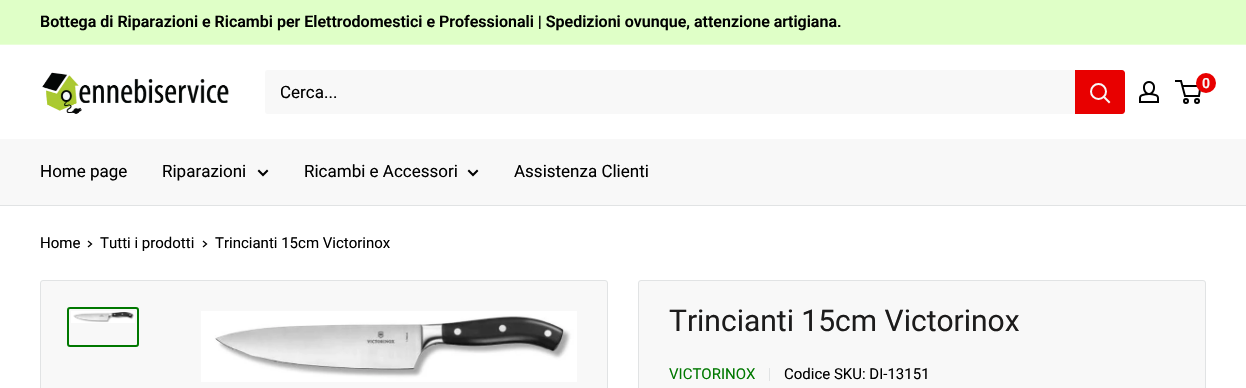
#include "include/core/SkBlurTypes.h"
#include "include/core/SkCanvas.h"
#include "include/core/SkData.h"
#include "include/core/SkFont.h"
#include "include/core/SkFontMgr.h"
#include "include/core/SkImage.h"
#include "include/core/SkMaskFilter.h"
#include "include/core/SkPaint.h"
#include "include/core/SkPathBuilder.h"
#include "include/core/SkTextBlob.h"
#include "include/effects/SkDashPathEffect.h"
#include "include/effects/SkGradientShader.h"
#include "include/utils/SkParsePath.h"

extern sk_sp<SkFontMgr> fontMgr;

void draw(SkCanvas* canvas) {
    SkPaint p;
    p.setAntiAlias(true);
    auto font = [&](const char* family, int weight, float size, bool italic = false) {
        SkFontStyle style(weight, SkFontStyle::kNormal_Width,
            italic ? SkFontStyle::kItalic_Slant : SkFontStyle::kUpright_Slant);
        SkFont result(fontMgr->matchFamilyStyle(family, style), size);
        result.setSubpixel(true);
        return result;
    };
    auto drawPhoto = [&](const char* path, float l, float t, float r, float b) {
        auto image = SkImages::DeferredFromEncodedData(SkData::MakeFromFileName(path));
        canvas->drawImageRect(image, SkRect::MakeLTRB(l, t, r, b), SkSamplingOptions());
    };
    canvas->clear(0xFFFFFFFF);
    p.setColor(0xFFDFFFC7);
    canvas->drawRect(SkRect::MakeLTRB(0, 0, 1246, 44), p);
    p.setColor(0xFFE9FFD8);
    canvas->drawRect(SkRect::MakeLTRB(0, 44, 1246, 45), p);
    auto font1 = font("Roboto", 600, 16);
    p.setColor(0xFF000000);
    canvas->drawString("Bottega di Riparazioni e Ricambi per Elettrodomestici e Professionali | Spedizioni ovunque, attenzione artigiana.", 40, 27, font1, p);
    drawPhoto("media/1.png", 42, 72, 229, 114);
    drawPhoto("media/2.png", 1139, 81, 1159, 103);
    p.setStyle(SkPaint::kStroke_Style);
    p.setStrokeWidth(2);
    canvas->drawCircle(1186, 101, 2, p);
    canvas->drawCircle(1197, 101, 2, p);
    canvas->drawPath(SkPathBuilder().moveTo(1182.5f, 86).lineTo(1200.5f, 86).lineTo(1199, 96).lineTo(1185, 96).lineTo(1181, 81).lineTo(1175, 81).detach(), p);
    p.setStyle(SkPaint::kFill_Style);
    p.setColor(0xFFE80000);
    canvas->drawCircle(1206, 83, 10, p);
    auto font2 = font("Roboto", 600, 14);
    p.setColor(0xFFF8F8F8);
    canvas->drawString("0", 1202, 88, font2, p);
    canvas->drawRoundRect(SkRect::MakeLTRB(265, 70, 1125, 114), 3, 3, p);
    auto font3 = font("Roboto", 400, 17);
    p.setColor(0xFF000000);
    canvas->drawString("Cerca...", 280, 98, font3, p);
    p.setColor(0xFFE80000);
    canvas->drawPath(SkPathBuilder().moveTo(1075, 70).lineTo(1122, 70).cubicTo(1123.5f, 70, 1125, 71.5f, 1125, 73).lineTo(1125, 111).cubicTo(1125, 112.5f, 1123.5f, 114, 1122, 114).lineTo(1075, 114).close().detach(), p);
    p.setStyle(SkPaint::kStroke_Style);
    p.setStrokeCap(SkPaint::kSquare_Cap);
    p.setColor(0xFFF8F8F8);
    canvas->drawPath(SkPathBuilder().moveTo(1109, 102).lineTo(1104, 97).detach(), p);
    p.setStrokeCap(SkPaint::kButt_Cap);
    canvas->drawCircle(1098.5f, 91.5f, 7.5f, p);
    p.setStyle(SkPaint::kFill_Style);
    canvas->drawRect(SkRect::MakeLTRB(0, 139, 1246, 205), p);
    p.setColor(0xFFE1E3E4);
    canvas->drawRect(SkRect::MakeLTRB(0, 205, 1246, 206), p);
    p.setColor(0xFF000000);
    canvas->drawString("Home page", 40, 177, font3, p);
    canvas->drawString("Riparazioni", 162, 177, font3, p);
    p.setStyle(SkPaint::kStroke_Style);
    p.setStrokeCap(SkPaint::kSquare_Cap);
    canvas->drawPath(SkPathBuilder().moveTo(267, 171).lineTo(263, 175).lineTo(259, 171).detach(), p);
    p.setStyle(SkPaint::kFill_Style);
    canvas->drawString("Ricambi e Accessori", 304, 177, font3, p);
    p.setStyle(SkPaint::kStroke_Style);
    canvas->drawPath(SkPathBuilder().moveTo(477, 171).lineTo(473, 175).lineTo(469, 171).detach(), p);
    p.setStyle(SkPaint::kFill_Style);
    canvas->drawString("Assistenza Clienti", 514, 177, font3, p);
    auto font4 = font("Roboto", 400, 15);
    canvas->drawString("Home", 40, 248, font4, p);
    p.setStyle(SkPaint::kStroke_Style);
    p.setStrokeWidth(1.3f);
    canvas->drawPath(SkPathBuilder().moveTo(88.5f, 241.5f).lineTo(91.5f, 244).lineTo(88.5f, 246.5f).detach(), p);
    p.setStyle(SkPaint::kFill_Style);
    canvas->drawString("Tutti i prodotti", 100, 248, font4, p);
    p.setStyle(SkPaint::kStroke_Style);
    canvas->drawPath(SkPathBuilder().moveTo(203.5f, 241.5f).lineTo(206.5f, 244).lineTo(203.5f, 246.5f).detach(), p);
    p.setStyle(SkPaint::kFill_Style);
    canvas->drawString("Trincianti 15cm Victorinox", 215, 248, font4, p);
    p.setColor(0xFFF8F8F8);
    canvas->drawRoundRect(SkRect::MakeLTRB(40.5f, 280.5f, 607.5f, 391.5f), 2.5f, 2.5f, p);
    p.setStyle(SkPaint::kStroke_Style);
    p.setStrokeWidth(1);
    p.setStrokeCap(SkPaint::kButt_Cap);
    p.setColor(0xFFE1E3E4);
    canvas->drawRoundRect(SkRect::MakeLTRB(40.5f, 280.5f, 607.5f, 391.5f), 2.5f, 2.5f, p);
    p.setStrokeWidth(2);
    p.setColor(0xFF007800);
    canvas->drawRoundRect(SkRect::MakeLTRB(68, 308, 138, 346), 2, 2, p);
    drawPhoto("media/3.png", 71, 311, 135, 323);
    drawPhoto("media/4.png", 201, 311, 577, 382);
    p.setStyle(SkPaint::kFill_Style);
    p.setColor(0xFFF8F8F8);
    canvas->drawRoundRect(SkRect::MakeLTRB(638.5f, 280.5f, 1205.5f, 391.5f), 2.5f, 2.5f, p);
    p.setStyle(SkPaint::kStroke_Style);
    p.setStrokeWidth(1);
    p.setColor(0xFFE1E3E4);
    canvas->drawRoundRect(SkRect::MakeLTRB(638.5f, 280.5f, 1205.5f, 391.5f), 2.5f, 2.5f, p);
    auto font5 = font("Roboto", 400, 30);
    p.setStyle(SkPaint::kFill_Style);
    p.setColor(0xFF1C1B1B);
    canvas->drawString("Trincianti 15cm Victorinox", 669, 331, font5, p);
    p.setColor(0xFF007800);
    canvas->drawString("VICTORINOX", 669, 379, font4, p);
    p.setColor(0xFFE1E3E4);
    canvas->drawRect(SkRect::MakeLTRB(769, 368, 770, 381), p);
    p.setColor(0xFF000000);
    canvas->drawString("Codice SKU: DI-13151", 784, 379, font4, p);
}
